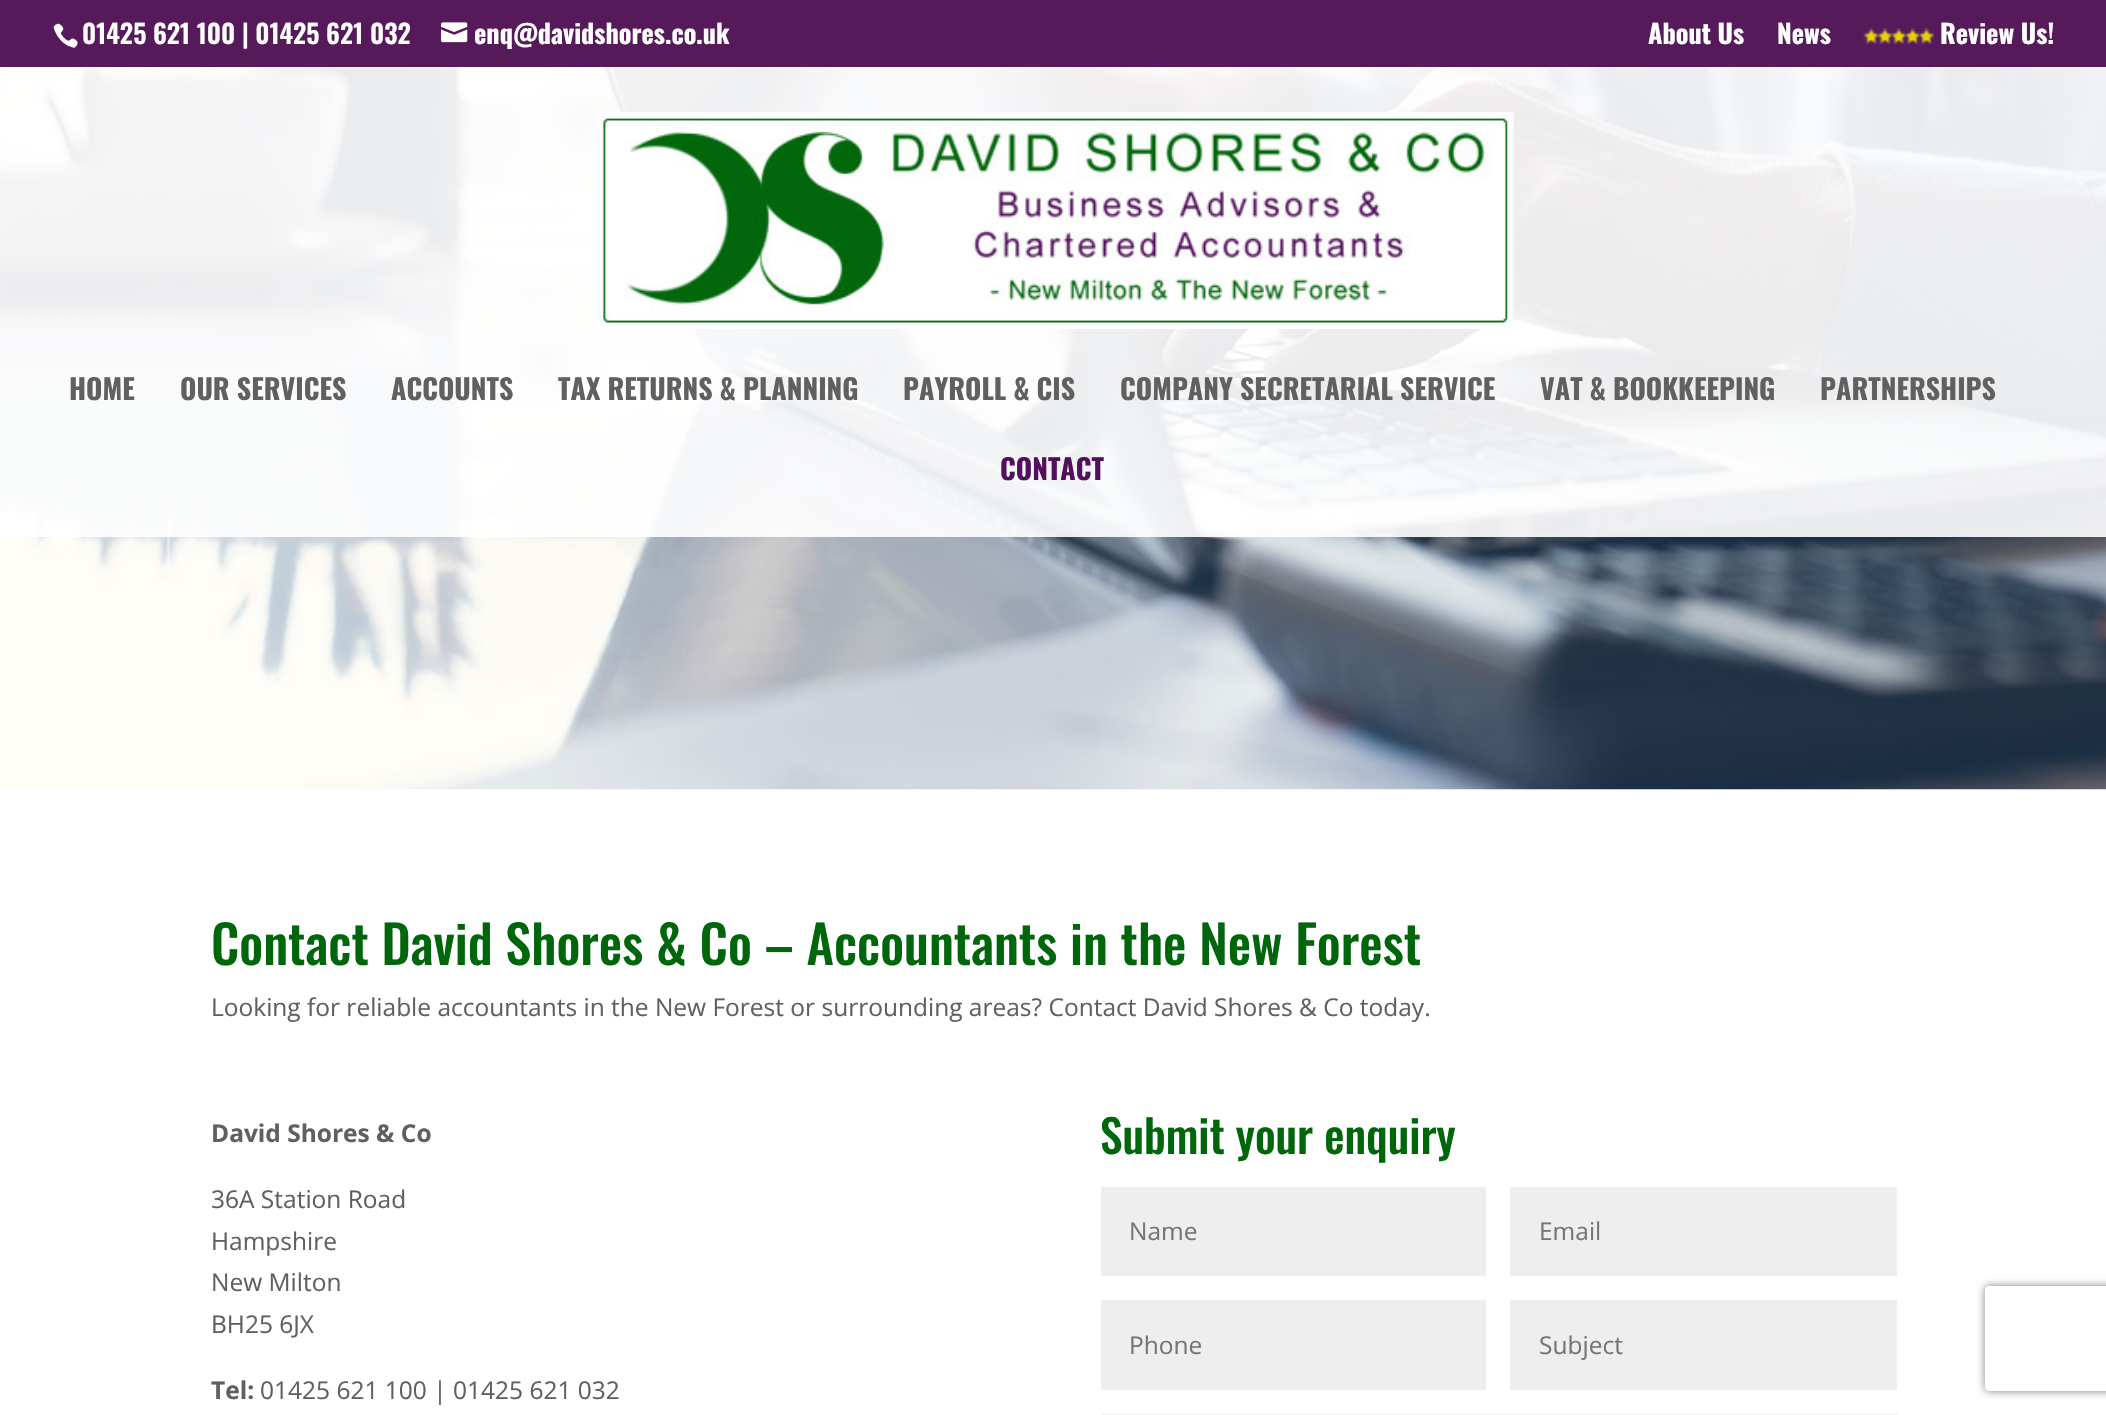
#include "include/core/SkBlurTypes.h"
#include "include/core/SkCanvas.h"
#include "include/core/SkData.h"
#include "include/core/SkFont.h"
#include "include/core/SkFontMgr.h"
#include "include/core/SkImage.h"
#include "include/core/SkMaskFilter.h"
#include "include/core/SkPaint.h"
#include "include/core/SkPathBuilder.h"
#include "include/core/SkTextBlob.h"
#include "include/effects/SkDashPathEffect.h"
#include "include/effects/SkGradientShader.h"
#include "include/utils/SkParsePath.h"

extern sk_sp<SkFontMgr> fontMgr;

void draw(SkCanvas* canvas) {
    SkPaint p;
    p.setAntiAlias(true);
    auto font = [&](const char* family, int weight, float size, bool italic = false) {
        SkFontStyle style(weight, SkFontStyle::kNormal_Width,
            italic ? SkFontStyle::kItalic_Slant : SkFontStyle::kUpright_Slant);
        SkFont result(fontMgr->matchFamilyStyle(family, style), size);
        result.setSubpixel(true);
        return result;
    };
    auto drawPhoto = [&](const char* path, float l, float t, float r, float b) {
        auto image = SkImages::DeferredFromEncodedData(SkData::MakeFromFileName(path));
        canvas->drawImageRect(image, SkRect::MakeLTRB(l, t, r, b), SkSamplingOptions());
    };
    canvas->clear(0xFFFFFFFF);
    p.setColor(0xFF561A5B);
    canvas->drawRect(SkRect::MakeLTRB(0, 0, 2106, 67), p);
    drawPhoto("media/1.png", 53, 23, 78, 48);
    auto font1 = font("Oswald", 600, 26.25f);
    p.setColor(0xFFFFFFFF);
    canvas->drawString("01425 621 100 | 01425 621 032", 82, 44, font1, p);
    drawPhoto("media/2.png", 441, 22, 468, 43);
    auto font2 = font("Oswald", 700, 26.25f);
    {
        const struct { const char* s; float x, y; } items[] = {
            {"enq@davidshores.co.uk", 474, 44},
            {"About Us", 1648, 44},
            {"News", 1777, 44},
        };
        for (auto [s, x, y] : items) {
            canvas->drawString(s, x, y, font2, p);
        }
    }
    drawPhoto("media/3.png", 1863, 28, 1934, 45);
    canvas->drawString("Review Us!", 1940, 44, font2, p);
    drawPhoto("media/5.png", 0, 67, 2106, 790);
    p.setColor(0xE6FFFFFF);
    canvas->drawRect(SkRect::MakeLTRB(0, 67, 2106, 537), p);
    drawPhoto("media/4.png", 597, 112, 1514, 329);
    auto font3 = font("Oswald", 700, 28);
    p.setColor(0xFF606060);
    {
        const struct { const char* s; float x, y; } items[] = {
            {"HOME", 69, 400},
            {"OUR SERVICES", 180, 400},
            {"ACCOUNTS", 391, 400},
            {"TAX RETURNS & PLANNING", 558, 400},
            {"PAYROLL & CIS", 903, 400},
            {"COMPANY SECRETARIAL SERVICE", 1120, 400},
            {"VAT & BOOKKEEPING", 1540, 400},
            {"PARTNERSHIPS", 1820, 400},
        };
        for (auto [s, x, y] : items) {
            canvas->drawString(s, x, y, font3, p);
        }
    }
    p.setColor(0xFF520F5B);
    canvas->drawString("CONTACT", 1000, 480, font3, p);
    auto font4 = font("Oswald", 500, 52.5f);
    p.setColor(0xFF00660B);
    canvas->drawString("Contact David Shores & Co – Accountants in the New Forest", 211, 965, font4, p);
    auto font5 = font("Open Sans", 400, 24.5f);
    p.setColor(0xFF606060);
    canvas->drawString("Looking for reliable accountants in the New Forest or surrounding areas? Contact David Shores & Co today.", 211, 1016, font5, p);
    auto font6 = font("Open Sans", 700, 24.5f);
    canvas->drawString("David Shores & Co", 211, 1142, font6, p);
    {
        const struct { const char* s; float x, y; } items[] = {
            {"36A Station Road", 211, 1208},
            {"Hampshire", 211, 1250},
            {"New Milton", 211, 1291},
            {"BH25 6JX", 211, 1333},
        };
        for (auto [s, x, y] : items) {
            canvas->drawString(s, x, y, font5, p);
        }
    }
    canvas->drawString("Tel:", 211, 1399, font6, p);
    canvas->drawString("01425 621 100 | 01425 621 032", 260, 1399, font5, p);
    auto font7 = font("Oswald", 500, 45.5f);
    p.setColor(0xFF00660B);
    canvas->drawString("Submit your enquiry", 1100, 1154, font7, p);
    p.setColor(0xFFEEEEEE);
    canvas->drawRect(SkRect::MakeLTRB(1101, 1187, 1486, 1276), p);
    p.setColor(0xFF757575);
    canvas->drawString("Name", 1129, 1240, font5, p);
    p.setColor(0xFFEEEEEE);
    canvas->drawRect(SkRect::MakeLTRB(1510, 1187, 1897, 1276), p);
    p.setColor(0xFF757575);
    canvas->drawString("Email", 1539, 1240, font5, p);
    p.setColor(0xFFEEEEEE);
    canvas->drawRect(SkRect::MakeLTRB(1101, 1300, 1486, 1390), p);
    p.setColor(0xFF757575);
    canvas->drawString("Phone", 1129, 1354, font5, p);
    p.setColor(0xFFEEEEEE);
    canvas->drawRect(SkRect::MakeLTRB(1510, 1300, 1897, 1390), p);
    p.setColor(0xFF757575);
    canvas->drawString("Subject", 1539, 1354, font5, p);
    p.setColor(0xFFEEEEEE);
    canvas->drawRect(SkRect::MakeLTRB(1101, 1414, 1897, 1415), p);
    canvas->save();
    canvas->clipPath(SkPathBuilder(SkPathFillType::kEvenOdd).moveTo(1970, 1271).lineTo(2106, 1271).lineTo(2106, 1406).lineTo(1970, 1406).close().moveTo(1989, 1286).lineTo(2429, 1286).cubicTo(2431, 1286, 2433, 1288, 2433, 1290).lineTo(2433, 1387).cubicTo(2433, 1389, 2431, 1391, 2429, 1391).lineTo(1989, 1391).cubicTo(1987, 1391, 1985, 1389, 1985, 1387).lineTo(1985, 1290).cubicTo(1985, 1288, 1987, 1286, 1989, 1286).close().detach(), true);
    p.setColor(0xFF808080);
    p.setMaskFilter(SkMaskFilter::MakeBlur(kNormal_SkBlurStyle, 4.5f));
    canvas->drawRoundRect(SkRect::MakeLTRB(1985, 1286, 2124, 1391), 4, 4, p);
    p.setMaskFilter(nullptr);
    canvas->restore();
}
